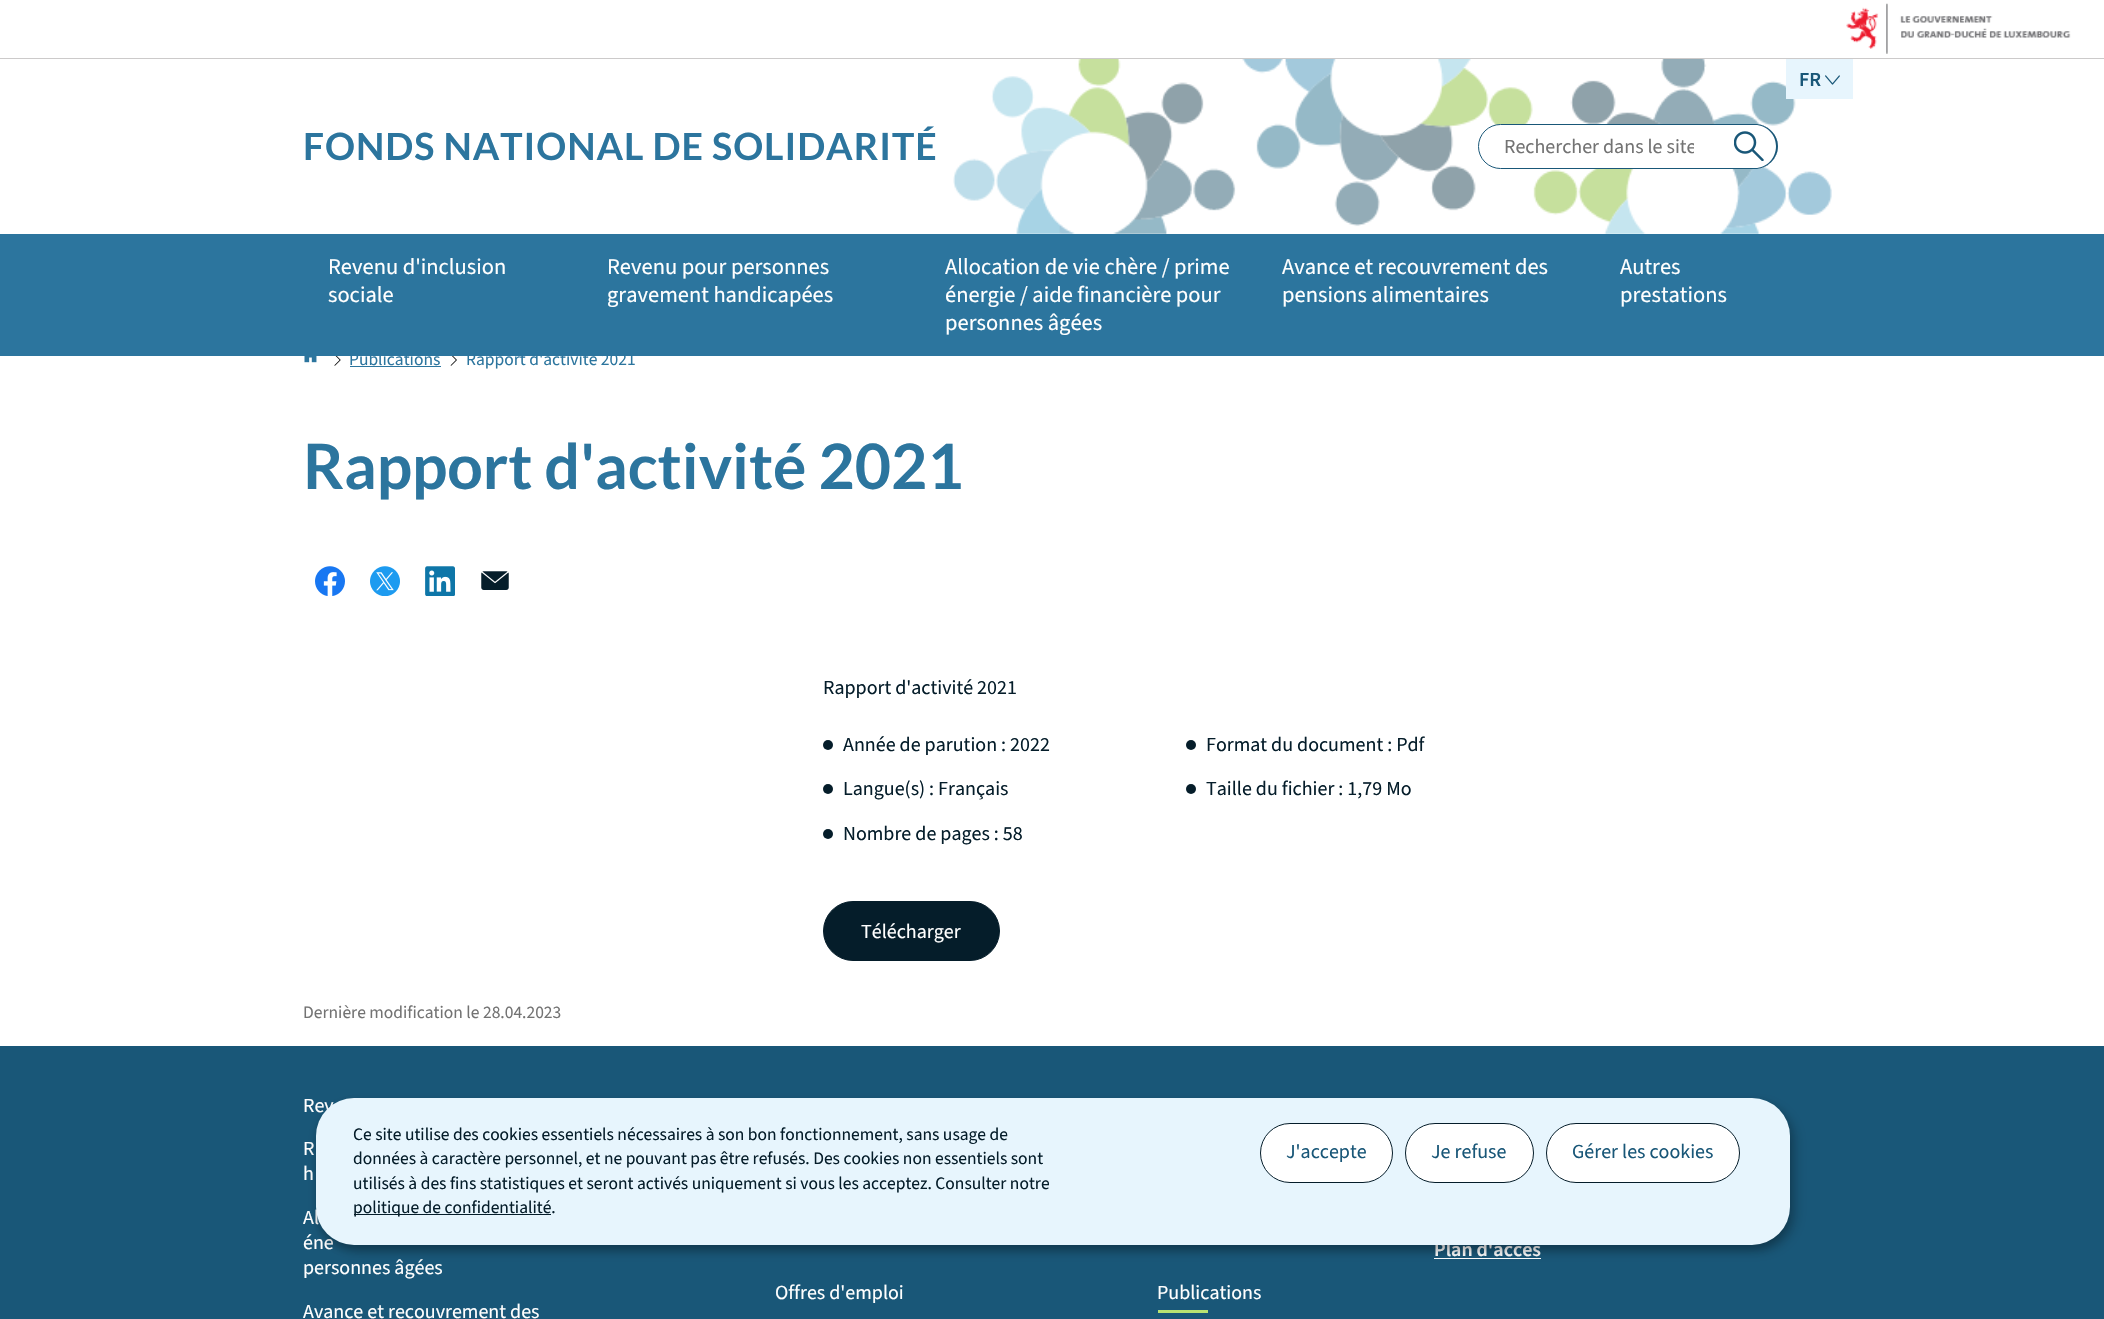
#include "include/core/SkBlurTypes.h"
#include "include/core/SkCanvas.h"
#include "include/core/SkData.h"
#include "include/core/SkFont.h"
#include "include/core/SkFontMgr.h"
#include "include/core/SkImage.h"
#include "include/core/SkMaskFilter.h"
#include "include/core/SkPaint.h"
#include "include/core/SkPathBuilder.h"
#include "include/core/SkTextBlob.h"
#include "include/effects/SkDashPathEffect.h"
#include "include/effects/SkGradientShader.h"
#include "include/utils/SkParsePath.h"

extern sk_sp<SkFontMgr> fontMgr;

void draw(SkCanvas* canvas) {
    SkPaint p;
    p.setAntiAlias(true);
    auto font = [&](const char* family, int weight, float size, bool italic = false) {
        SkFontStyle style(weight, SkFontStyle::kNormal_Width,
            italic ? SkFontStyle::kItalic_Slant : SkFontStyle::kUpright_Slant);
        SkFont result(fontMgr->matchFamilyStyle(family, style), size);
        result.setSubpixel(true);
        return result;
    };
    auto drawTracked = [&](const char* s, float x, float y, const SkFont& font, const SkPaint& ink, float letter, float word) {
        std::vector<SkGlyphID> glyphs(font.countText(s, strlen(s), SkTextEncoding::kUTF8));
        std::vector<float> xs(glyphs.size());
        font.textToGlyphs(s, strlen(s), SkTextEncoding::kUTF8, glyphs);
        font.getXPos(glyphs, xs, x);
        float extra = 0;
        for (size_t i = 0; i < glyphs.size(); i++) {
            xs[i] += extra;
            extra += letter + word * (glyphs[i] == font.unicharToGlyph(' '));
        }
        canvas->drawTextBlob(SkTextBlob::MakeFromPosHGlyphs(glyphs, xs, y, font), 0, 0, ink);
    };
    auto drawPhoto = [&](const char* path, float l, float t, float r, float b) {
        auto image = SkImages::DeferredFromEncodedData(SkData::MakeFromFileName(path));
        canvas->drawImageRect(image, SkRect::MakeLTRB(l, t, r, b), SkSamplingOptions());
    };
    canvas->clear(0xFFFFFFFF);
    p.setColor(0xFFCCCACA);
    canvas->drawRect(SkRect::MakeLTRB(0, 58, 2104, 59), p);
    drawPhoto("media/1.png", 1846, 3, 2071, 54);
    drawPhoto("media/2.png", 953, 59, 1832, 234);
    p.setColor(0xFFE7F5FD);
    canvas->drawRect(SkRect::MakeLTRB(1786, 59, 1853, 99), p);
    auto font1 = font("Source Sans 3", 600, 20);
    p.setColor(0xFF195778);
    canvas->drawString("FR", 1799, 86, font1, p);
    drawPhoto("media/3.png", 1825, 75, 1840, 85);
    auto font2 = font("Lato", 700, 37.5f);
    p.setColor(0xFF2C759E);
    drawTracked("FONDS NATIONAL DE SOLIDARITÉ", 303, 160, font2, p, 0.95f, 0);
    p.setColor(0xFFFFFFFF);
    canvas->drawRoundRect(SkRect::MakeLTRB(1478.5f, 124.5f, 1777.5f, 168.5f), 22, 22, p);
    p.setStyle(SkPaint::kStroke_Style);
    p.setStrokeWidth(1);
    p.setColor(0xFF195778);
    canvas->drawRoundRect(SkRect::MakeLTRB(1478.5f, 124.5f, 1777.5f, 168.5f), 22, 22, p);
    canvas->save();
    canvas->clipRect(SkRect::MakeLTRB(1504, 133, 1694, 159));
    auto font3 = font("Source Sans 3", 400, 20);
    p.setStyle(SkPaint::kFill_Style);
    p.setColor(0xFF737373);
    canvas->drawString("Rechercher dans le site", 1504, 153, font3, p);
    canvas->restore();
    p.setColor(0xFFFFFFFF);
    canvas->drawPath(SkPathBuilder().moveTo(1721, 124).lineTo(1755.5f, 124).cubicTo(1768, 124, 1778, 134, 1778, 146.5f).cubicTo(1778, 159, 1768, 169, 1755.5f, 169).lineTo(1721, 169).close().detach(), p);
    p.setColor(0xFF195778);
    canvas->drawPath(SkPathBuilder(SkPathFillType::kEvenOdd).moveTo(1721, 124).lineTo(1755, 124).cubicTo(1767, 124, 1778, 134, 1778, 146).cubicTo(1778, 159, 1767, 169, 1755, 169).lineTo(1721, 169).close().moveTo(1721, 125).lineTo(1755, 125).cubicTo(1767, 125, 1776, 135, 1776, 146).cubicTo(1776, 158, 1767, 168, 1755, 168).lineTo(1721, 168).close().detach(), p);
    drawPhoto("media/4.png", 1734, 131, 1764, 161);
    p.setColor(0xFF2C759E);
    canvas->drawRect(SkRect::MakeLTRB(0, 234, 2104, 356), p);
    auto font4 = font("Source Sans 3", 400, 22.5f);
    p.setColor(0xFFFFFFFF);
    {
        const struct { const char* s; float x, y; } items[] = {
            {"Revenu d'inclusion", 328, 274},
            {"sociale", 328, 302},
            {"Revenu pour personnes", 607, 274},
            {"gravement handicapées", 607, 302},
            {"Allocation de vie chère / prime", 945, 274},
            {"énergie / aide financière pour", 945, 302},
            {"personnes âgées", 945, 330},
            {"Avance et recouvrement des", 1282, 274},
            {"pensions alimentaires", 1282, 302},
            {"Autres", 1620, 274},
            {"prestations", 1620, 302},
        };
        for (auto [s, x, y] : items) {
            canvas->drawString(s, x, y, font4, p);
        }
    }
    drawPhoto("media/5.png", 304, 356, 317, 363);
    drawPhoto("media/6.png", 334, 356, 341, 366);
    auto font5 = font("Source Sans 3", 400, 17.5f);
    p.setColor(0xFF2C759E);
    canvas->drawString("Publications", 349, 365, font5, p);
    canvas->drawRect(SkRect::MakeLTRB(350, 366, 441, 367), p);
    drawPhoto("media/7.png", 450, 356, 457, 366);
    canvas->drawString("Rapport d'activité 2021", 466, 365, font5, p);
    auto font6 = font("Lato", 700, 62.5f);
    canvas->drawString("Rapport d'activité 2021", 303, 489, font6, p);
    drawPhoto("media/8.png", 315, 566, 345, 596);
    drawPhoto("media/9.png", 370, 566, 400, 596);
    drawPhoto("media/10.png", 425, 566, 455, 596);
    drawPhoto("media/11.png", 481, 571, 509, 590);
    p.setColor(0xFF051D2A);
    canvas->drawString("Rapport d'activité 2021", 823, 694, font3, p);
    canvas->drawCircle(828, 745, 5, p);
    canvas->drawString("Année de parution : 2022", 843, 751, font3, p);
    canvas->drawCircle(1191, 745, 5, p);
    canvas->drawString("Format du document : Pdf", 1206, 751, font3, p);
    canvas->drawCircle(828, 789, 5, p);
    canvas->drawString("Langue(s) : Français", 843, 795, font3, p);
    canvas->drawCircle(1191, 789, 5, p);
    canvas->drawString("Taille du fichier : 1,79 Mo", 1206, 795, font3, p);
    canvas->drawCircle(828, 834, 5, p);
    canvas->drawString("Nombre de pages : 58", 843, 840, font3, p);
    canvas->drawRoundRect(SkRect::MakeLTRB(823.5f, 901.5f, 999.5f, 960.5f), 29.5f, 29.5f, p);
    p.setStyle(SkPaint::kStroke_Style);
    canvas->drawRoundRect(SkRect::MakeLTRB(823.5f, 901.5f, 999.5f, 960.5f), 29.5f, 29.5f, p);
    p.setStyle(SkPaint::kFill_Style);
    p.setColor(0xFFFFFFFF);
    canvas->drawString("Télécharger", 861, 938, font3, p);
    p.setColor(0xFF737373);
    canvas->drawString("Dernière modification le 28.04.2023", 303, 1018, font5, p);
    p.setColor(0xFF195778);
    canvas->drawRect(SkRect::MakeLTRB(0, 1046, 2104, 1319), p);
    p.setColor(0xFFFFFFFF);
    {
        const struct { const char* s; float x, y; } items[] = {
            {"Rev", 303, 1112},
            {"R", 303, 1155},
            {"h", 303, 1180},
            {"Al", 303, 1224},
            {"éne", 303, 1249},
            {"personnes âgées", 303, 1274},
            {"Avance et recouvrement des", 303, 1318},
        };
        for (auto [s, x, y] : items) {
            canvas->drawString(s, x, y, font3, p);
        }
    }
    canvas->drawString("Plan d'accès", 1434, 1256, font1, p);
    canvas->drawRect(SkRect::MakeLTRB(1434, 1258, 1541, 1259), p);
    canvas->drawString("Offres d'emploi", 775, 1299, font3, p);
    canvas->drawString("Publications", 1157, 1299, font3, p);
    p.setColor(0xFFB8E372);
    canvas->drawRect(SkRect::MakeLTRB(1158, 1310, 1208, 1313), p);
    p.setColor(0x30000000);
    p.setMaskFilter(SkMaskFilter::MakeBlur(kNormal_SkBlurStyle, 6));
    canvas->drawRoundRect(SkRect::MakeLTRB(323, 1104, 1796, 1251), 38, 38, p);
    p.setMaskFilter(nullptr);
    p.setColor(0x33000000);
    p.setMaskFilter(SkMaskFilter::MakeBlur(kNormal_SkBlurStyle, 4));
    canvas->drawRoundRect(SkRect::MakeLTRB(316, 1103, 1790, 1250), 38, 38, p);
    p.setMaskFilter(nullptr);
    p.setColor(0xFFE7F5FD);
    canvas->drawRoundRect(SkRect::MakeLTRB(316, 1098, 1790, 1245), 38, 38, p);
    p.setColor(0xFF051D2A);
    {
        const struct { const char* s; float x, y; } items[] = {
            {"Ce site utilise des cookies essentiels nécessaires à son bon fonctionnement, sans usage de", 353, 1140},
            {"données à caractère personnel, et ne pouvant pas être refusés. Des cookies non essentiels sont", 353, 1164},
            {"utilisés à des fins statistiques et seront activés uniquement si vous les acceptez. Consulter notre", 353, 1189},
        };
        for (auto [s, x, y] : items) {
            canvas->drawString(s, x, y, font5, p);
        }
    }
    canvas->drawRect(SkRect::MakeLTRB(354, 1214, 551, 1215), p);
    canvas->drawString("politique de confidentialité.", 353, 1213, font5, p);
    p.setColor(0xFFFFFFFF);
    canvas->drawRoundRect(SkRect::MakeLTRB(1260.5f, 1123.5f, 1392.5f, 1182.5f), 29.5f, 29.5f, p);
    p.setStyle(SkPaint::kStroke_Style);
    p.setColor(0xFF051D2A);
    canvas->drawRoundRect(SkRect::MakeLTRB(1260.5f, 1123.5f, 1392.5f, 1182.5f), 29.5f, 29.5f, p);
    p.setStyle(SkPaint::kFill_Style);
    p.setColor(0xFF195778);
    canvas->drawString("J'accepte", 1286, 1158, font3, p);
    p.setColor(0xFFFFFFFF);
    canvas->drawRoundRect(SkRect::MakeLTRB(1405.5f, 1123.5f, 1533.5f, 1182.5f), 29.5f, 29.5f, p);
    p.setStyle(SkPaint::kStroke_Style);
    p.setColor(0xFF051D2A);
    canvas->drawRoundRect(SkRect::MakeLTRB(1405.5f, 1123.5f, 1533.5f, 1182.5f), 29.5f, 29.5f, p);
    p.setStyle(SkPaint::kFill_Style);
    p.setColor(0xFF195778);
    canvas->drawString("Je refuse", 1431, 1158, font3, p);
    p.setColor(0xFFFFFFFF);
    canvas->drawRoundRect(SkRect::MakeLTRB(1546.5f, 1123.5f, 1739.5f, 1182.5f), 29.5f, 29.5f, p);
    p.setStyle(SkPaint::kStroke_Style);
    p.setColor(0xFF051D2A);
    canvas->drawRoundRect(SkRect::MakeLTRB(1546.5f, 1123.5f, 1739.5f, 1182.5f), 29.5f, 29.5f, p);
    p.setStyle(SkPaint::kFill_Style);
    p.setColor(0xFF195778);
    canvas->drawString("Gérer les cookies", 1572, 1158, font3, p);
}
